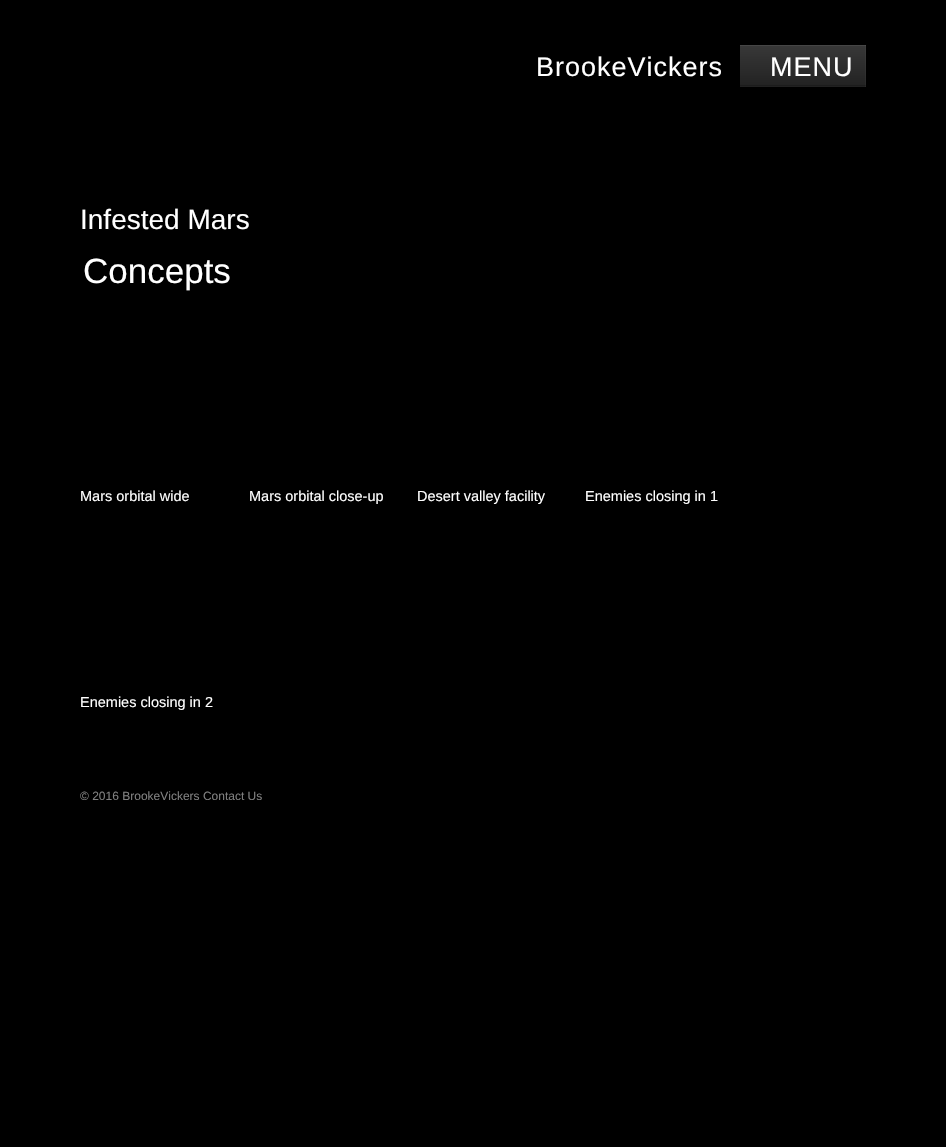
#include "include/core/SkBlurTypes.h"
#include "include/core/SkCanvas.h"
#include "include/core/SkData.h"
#include "include/core/SkFont.h"
#include "include/core/SkFontMgr.h"
#include "include/core/SkImage.h"
#include "include/core/SkMaskFilter.h"
#include "include/core/SkPaint.h"
#include "include/core/SkPathBuilder.h"
#include "include/core/SkTextBlob.h"
#include "include/effects/SkDashPathEffect.h"
#include "include/effects/SkGradientShader.h"
#include "include/utils/SkParsePath.h"

extern sk_sp<SkFontMgr> fontMgr;

void draw(SkCanvas* canvas) {
    SkPaint p;
    p.setAntiAlias(true);
    auto font = [&](const char* family, int weight, float size, bool italic = false) {
        SkFontStyle style(weight, SkFontStyle::kNormal_Width,
            italic ? SkFontStyle::kItalic_Slant : SkFontStyle::kUpright_Slant);
        SkFont result(fontMgr->matchFamilyStyle(family, style), size);
        result.setSubpixel(true);
        return result;
    };
    auto drawTracked = [&](const char* s, float x, float y, const SkFont& font, const SkPaint& ink, float letter, float word) {
        std::vector<SkGlyphID> glyphs(font.countText(s, strlen(s), SkTextEncoding::kUTF8));
        std::vector<float> xs(glyphs.size());
        font.textToGlyphs(s, strlen(s), SkTextEncoding::kUTF8, glyphs);
        font.getXPos(glyphs, xs, x);
        float extra = 0;
        for (size_t i = 0; i < glyphs.size(); i++) {
            xs[i] += extra;
            extra += letter + word * (glyphs[i] == font.unicharToGlyph(' '));
        }
        canvas->drawTextBlob(SkTextBlob::MakeFromPosHGlyphs(glyphs, xs, y, font), 0, 0, ink);
    };
    canvas->clear(0xFF000000);
    auto font1 = font("Liberation Sans", 400, 27);
    p.setColor(0xFFFFFFFF);
    drawTracked("BrookeVickers", 536, 76, font1, p, 1, 0);
    {
        const SkColor colors[] = {0xFF383838, 0xFF222222};
        const float stops[] = {0, 1};
        const SkPoint ends[] = {{803, 45}, {803, 87}};
        p.setShader(SkGradientShader::MakeLinear(ends, colors, stops, 2, SkTileMode::kClamp));
        p.setAlpha(255);
    }
    canvas->drawRect(SkRect::MakeLTRB(740, 46, 865, 85), p);
    {
        const SkColor colors[] = {0xFF464646, 0xFF313131};
        const float stops[] = {0, 1};
        const SkPoint ends[] = {{803, 45}, {803, 87}};
        p.setShader(SkGradientShader::MakeLinear(ends, colors, stops, 2, SkTileMode::kClamp));
        p.setAlpha(255);
    }
    canvas->drawRect(SkRect::MakeLTRB(740, 45, 866, 46), p);
    {
        const SkColor colors[] = {0xFF3E3E3E, 0xFF292929};
        const float stops[] = {0, 1};
        const SkPoint ends[] = {{803, 45}, {803, 87}};
        p.setShader(SkGradientShader::MakeLinear(ends, colors, stops, 2, SkTileMode::kClamp));
        p.setAlpha(255);
    }
    canvas->drawRect(SkRect::MakeLTRB(865, 45, 866, 87), p);
    {
        const SkColor colors[] = {0xFF4C4C4C, 0xFF383838};
        const float stops[] = {0, 1};
        const SkPoint ends[] = {{803, 45}, {803, 87}};
        p.setShader(SkGradientShader::MakeLinear(ends, colors, stops, 2, SkTileMode::kClamp));
        p.setAlpha(255);
    }
    canvas->drawRect(SkRect::MakeLTRB(865, 45, 866, 46), p);
    {
        const SkColor colors[] = {0xFF2D2D2D, 0xFF1B1B1B};
        const float stops[] = {0, 1};
        const SkPoint ends[] = {{803, 45}, {803, 87}};
        p.setShader(SkGradientShader::MakeLinear(ends, colors, stops, 2, SkTileMode::kClamp));
        p.setAlpha(255);
    }
    canvas->drawRect(SkRect::MakeLTRB(740, 85, 866, 86), p);
    {
        const SkColor colors[] = {0xFF333333, 0xFF222222};
        const float stops[] = {0, 1};
        const SkPoint ends[] = {{803, 45}, {803, 87}};
        p.setShader(SkGradientShader::MakeLinear(ends, colors, stops, 2, SkTileMode::kClamp));
        p.setAlpha(255);
    }
    canvas->drawRect(SkRect::MakeLTRB(865, 85, 866, 87), p);
    p.setShader(nullptr);
    p.setColor(0xFF212121);
    canvas->drawRect(SkRect::MakeLTRB(740, 86, 866, 87), p);
    p.setColor(0xFF282828);
    canvas->drawRect(SkRect::MakeLTRB(865, 86, 866, 87), p);
    p.setColor(0xFFFFFFFF);
    drawTracked("MENU", 770, 76, font1, p, 1, 0);
    auto font2 = font("Liberation Sans", 400, 28);
    canvas->drawString("Infested Mars", 80, 229, font2, p);
    auto font3 = font("Liberation Sans", 400, 35);
    canvas->drawString("Concepts", 83, 283, font3, p);
    auto font4 = font("Liberation Sans", 400, 14.5f);
    {
        const struct { const char* s; float x, y; } items[] = {
            {"Mars orbital wide", 80, 501},
            {"Mars orbital close-up", 249, 501},
            {"Desert valley facility", 417, 501},
            {"Enemies closing in 1", 585, 501},
            {"Enemies closing in 2", 80, 707},
        };
        for (auto [s, x, y] : items) {
            canvas->drawString(s, x, y, font4, p);
        }
    }
    auto font5 = font("Liberation Sans", 400, 12);
    p.setColor(0xFF808080);
    canvas->drawString("© 2016 BrookeVickers Contact Us", 80, 800, font5, p);
}
